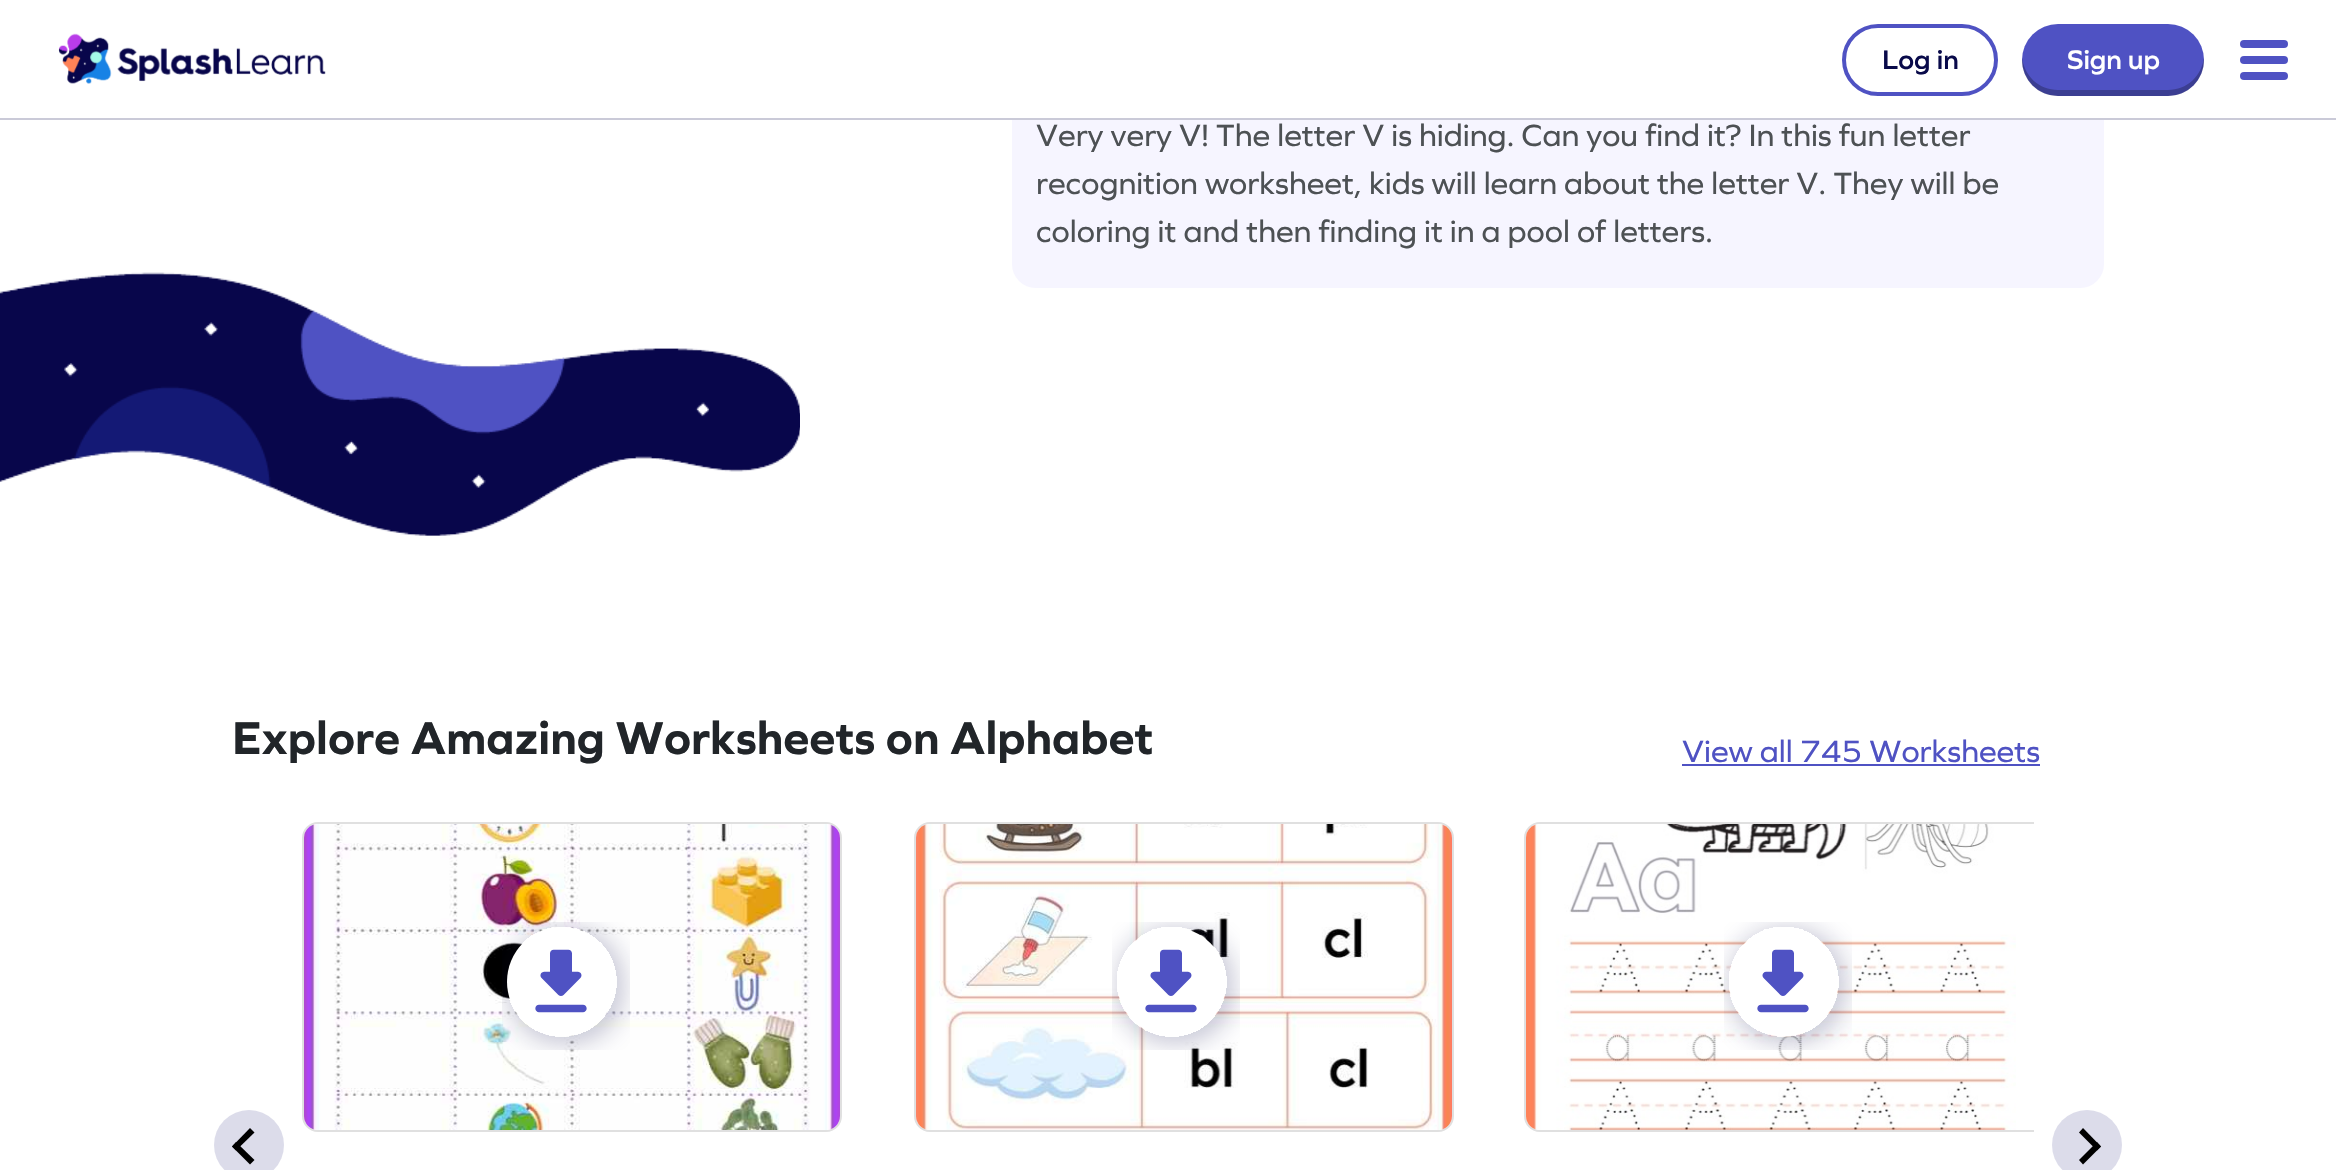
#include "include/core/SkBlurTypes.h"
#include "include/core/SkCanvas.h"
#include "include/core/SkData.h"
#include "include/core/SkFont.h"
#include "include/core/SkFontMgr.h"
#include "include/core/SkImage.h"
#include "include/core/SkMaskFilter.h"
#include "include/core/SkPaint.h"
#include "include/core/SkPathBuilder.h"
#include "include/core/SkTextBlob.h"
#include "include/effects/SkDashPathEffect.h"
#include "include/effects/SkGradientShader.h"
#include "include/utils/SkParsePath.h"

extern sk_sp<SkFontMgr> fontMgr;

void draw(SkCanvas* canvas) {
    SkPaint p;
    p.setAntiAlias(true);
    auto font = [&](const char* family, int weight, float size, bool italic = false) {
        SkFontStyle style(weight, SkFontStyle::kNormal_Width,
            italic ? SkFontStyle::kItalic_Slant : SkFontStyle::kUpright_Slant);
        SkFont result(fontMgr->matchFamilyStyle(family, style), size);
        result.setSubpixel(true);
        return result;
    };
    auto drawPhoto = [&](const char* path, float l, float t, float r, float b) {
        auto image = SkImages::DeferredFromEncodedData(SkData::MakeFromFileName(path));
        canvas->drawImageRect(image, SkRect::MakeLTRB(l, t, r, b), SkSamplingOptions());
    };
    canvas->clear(0xFFFFFFFF);
    p.setColor(0xFFF6F5FF);
    canvas->drawRoundRect(SkRect::MakeLTRB(1012, -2, 2104, 288), 24, 24, p);
    p.setColor(0xFFFFFFFF);
    canvas->drawRect(SkRect::MakeLTRB(1012, 0, 2104, 118), p);
    p.setColor(0xFFCACAD8);
    canvas->drawRect(SkRect::MakeLTRB(0, 118, 2336, 120), p);
    drawPhoto("media/1.png", 58, 33, 326, 84);
    p.setStyle(SkPaint::kStroke_Style);
    p.setStrokeWidth(4);
    p.setColor(0xFF4F52C3);
    canvas->drawRoundRect(SkRect::MakeLTRB(1844, 26, 1996, 94), 34, 34, p);
    auto font1 = font("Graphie", 600, 28);
    p.setStyle(SkPaint::kFill_Style);
    p.setColor(0xFF090A4A);
    canvas->drawString("Log in", 1882, 69, font1, p);
    p.setColor(0xFF4F52C3);
    canvas->drawRoundRect(SkRect::MakeLTRB(2022, 24, 2204, 96), 36, 36, p);
    p.setColor(0x40000000);
    canvas->drawPath(SkPathBuilder().moveTo(2022, 57).lineTo(2022, 60).cubicTo(2022, 80, 2038, 96, 2058, 96).lineTo(2168, 96).cubicTo(2188, 96, 2204, 80, 2204, 60).lineTo(2204, 57).cubicTo(2202, 76, 2187, 90, 2168, 90).lineTo(2058, 90).cubicTo(2039, 90, 2024, 76, 2022, 57).close().detach(), p);
    p.setColor(0xFFFFFFFF);
    canvas->drawString("Sign up", 2067, 69, font1, p);
    p.setColor(0xFF4F52C3);
    canvas->drawRoundRect(SkRect::MakeLTRB(2240, 40, 2288, 48), 4, 4, p);
    canvas->drawRoundRect(SkRect::MakeLTRB(2240, 56, 2288, 64), 4, 4, p);
    canvas->drawRoundRect(SkRect::MakeLTRB(2240, 72, 2288, 80), 4, 4, p);
    auto font2 = font("Graphie", 400, 32);
    p.setColor(0xFF4D5154);
    {
        const struct { const char* s; float x, y; } items[] = {
            {"Very very V! The letter V is hiding. Can you find it? In this fun letter", 1036, 146},
            {"recognition worksheet, kids will learn about the letter V. They will be", 1036, 194},
            {"coloring it and then finding it in a pool of letters.", 1036, 242},
        };
        for (auto [s, x, y] : items) {
            canvas->drawString(s, x, y, font2, p);
        }
    }
    drawPhoto("media/2.png", 0, 272, 800, 536);
    auto font3 = font("Graphie", 700, 48);
    p.setColor(0xFF212529);
    canvas->drawString("Explore Amazing Worksheets on Alphabet", 232, 754, font3, p);
    p.setColor(0xFF4F52C3);
    canvas->drawString("View all 745 Worksheets", 1682, 762, font2, p);
    canvas->drawRect(SkRect::MakeLTRB(1682, 764, 2040, 766), p);
    p.setStyle(SkPaint::kStroke_Style);
    p.setStrokeWidth(2);
    p.setColor(0xFFE0E0E0);
    canvas->drawRoundRect(SkRect::MakeLTRB(303, 823, 841, 1131), 15, 15, p);
    drawPhoto("media/3.png", 304, 824, 840, 1130);
    drawPhoto("media/4.png", 502, 922, 630, 1050);
    canvas->drawRoundRect(SkRect::MakeLTRB(915, 823, 1453, 1131), 15, 15, p);
    drawPhoto("media/5.png", 916, 824, 1452, 1130);
    drawPhoto("media/6.png", 1112, 922, 1240, 1050);
    canvas->save();
    canvas->clipRect(SkRect::MakeLTRB(302, 822, 2034, 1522));
    canvas->drawRoundRect(SkRect::MakeLTRB(1525, 823, 2063, 1131), 15, 15, p);
    canvas->restore();
    drawPhoto("media/7.png", 1526, 824, 2016, 1130);
    drawPhoto("media/8.png", 1724, 922, 1852, 1050);
    p.setStyle(SkPaint::kFill_Style);
    p.setColor(0xFFDCDCEA);
    canvas->drawCircle(249, 1145, 35, p);
    p.setColor(0xFF000000);
    canvas->drawPath(SkPathBuilder().moveTo(254.5f, 1160).lineTo(250, 1164.5f).lineTo(232, 1146.5f).lineTo(236, 1142).close().detach(), p);
    canvas->drawPath(SkPathBuilder().moveTo(254.5f, 1132.5f).lineTo(236, 1150.5f).lineTo(232, 1146.5f).lineTo(250, 1128).close().detach(), p);
    p.setColor(0xFFDCDCEA);
    canvas->drawCircle(2087, 1145, 35, p);
    p.setColor(0xFF000000);
    canvas->drawPath(SkPathBuilder().moveTo(2079, 1132.5f).lineTo(2083, 1128).lineTo(2101, 1146.5f).lineTo(2097, 1150.5f).close().detach(), p);
    canvas->drawPath(SkPathBuilder().moveTo(2079, 1160).lineTo(2097, 1142).lineTo(2101, 1146.5f).lineTo(2083, 1164.5f).close().detach(), p);
}
